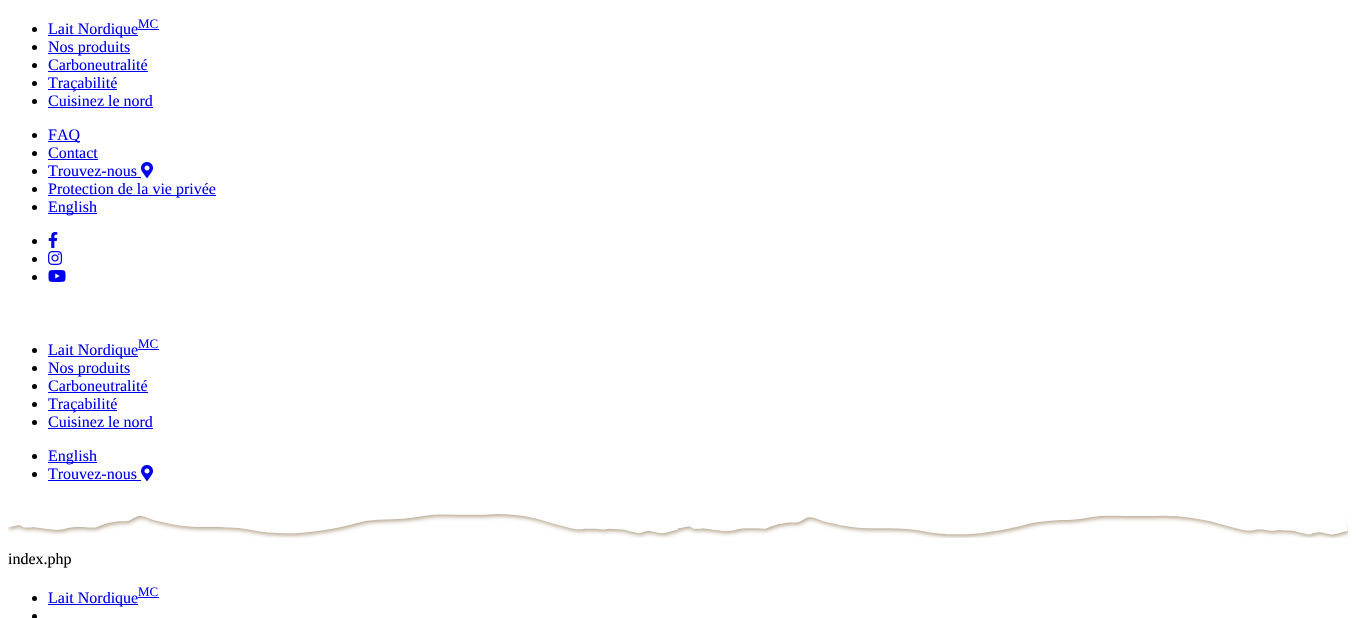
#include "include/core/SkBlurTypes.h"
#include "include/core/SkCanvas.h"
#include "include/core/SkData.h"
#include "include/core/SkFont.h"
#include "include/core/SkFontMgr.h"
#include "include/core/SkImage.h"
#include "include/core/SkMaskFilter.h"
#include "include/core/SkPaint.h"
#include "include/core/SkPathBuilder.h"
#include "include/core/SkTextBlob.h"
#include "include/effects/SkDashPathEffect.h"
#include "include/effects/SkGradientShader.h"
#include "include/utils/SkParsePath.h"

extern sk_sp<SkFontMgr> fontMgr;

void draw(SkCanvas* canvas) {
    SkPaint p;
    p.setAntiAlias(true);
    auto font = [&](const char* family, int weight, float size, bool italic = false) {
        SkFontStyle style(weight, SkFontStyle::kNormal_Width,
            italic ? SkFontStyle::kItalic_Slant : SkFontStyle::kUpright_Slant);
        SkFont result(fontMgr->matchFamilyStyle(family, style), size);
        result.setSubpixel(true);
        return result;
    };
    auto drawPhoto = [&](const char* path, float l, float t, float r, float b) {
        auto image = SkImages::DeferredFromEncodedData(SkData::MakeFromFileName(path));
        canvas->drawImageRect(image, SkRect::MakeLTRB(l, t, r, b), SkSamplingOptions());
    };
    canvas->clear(0xFFFFFFFF);
    p.setColor(0xFF000000);
    canvas->drawCircle(34.5f, 29.5f, 2.5f, p);
    p.setColor(0xFF0000EE);
    canvas->drawRect(SkRect::MakeLTRB(48, 35, 138, 36), p);
    auto font1 = font("Liberation Serif", 400, 16);
    canvas->drawString("Lait Nordique", 48, 34, font1, p);
    canvas->drawRect(SkRect::MakeLTRB(138, 29, 159, 30), p);
    auto font2 = font("Liberation Serif", 400, 13);
    canvas->drawString("MC", 138, 28, font2, p);
    p.setColor(0xFF000000);
    canvas->drawCircle(34.5f, 47.5f, 2.5f, p);
    p.setColor(0xFF0000EE);
    canvas->drawRect(SkRect::MakeLTRB(48, 53, 130, 54), p);
    canvas->drawString("Nos produits", 48, 52, font1, p);
    p.setColor(0xFF000000);
    canvas->drawCircle(34.5f, 65.5f, 2.5f, p);
    p.setColor(0xFF0000EE);
    canvas->drawString("Carboneutralité", 48, 70, font1, p);
    canvas->drawRect(SkRect::MakeLTRB(48, 71, 148, 72), p);
    p.setColor(0xFF000000);
    canvas->drawCircle(34.5f, 83.5f, 2.5f, p);
    p.setColor(0xFF0000EE);
    canvas->drawRect(SkRect::MakeLTRB(48, 89, 117, 90), p);
    canvas->drawString("Traçabilité", 48, 88, font1, p);
    p.setColor(0xFF000000);
    canvas->drawCircle(34.5f, 101.5f, 2.5f, p);
    p.setColor(0xFF0000EE);
    canvas->drawString("Cuisinez le nord", 48, 106, font1, p);
    canvas->drawRect(SkRect::MakeLTRB(48, 107, 153, 108), p);
    p.setColor(0xFF000000);
    canvas->drawCircle(34.5f, 135.5f, 2.5f, p);
    p.setColor(0xFF0000EE);
    canvas->drawRect(SkRect::MakeLTRB(48, 141, 80, 142), p);
    canvas->drawString("FAQ", 48, 140, font1, p);
    p.setColor(0xFF000000);
    canvas->drawCircle(34.5f, 153.5f, 2.5f, p);
    p.setColor(0xFF0000EE);
    canvas->drawString("Contact", 48, 158, font1, p);
    canvas->drawRect(SkRect::MakeLTRB(48, 159, 98, 160), p);
    p.setColor(0xFF000000);
    canvas->drawCircle(34.5f, 171.5f, 2.5f, p);
    p.setColor(0xFF0000EE);
    canvas->drawString("Trouvez-nous", 48, 176, font1, p);
    canvas->drawRect(SkRect::MakeLTRB(48, 177, 141, 178), p);
    drawPhoto("media/1.png", 141, 162, 153, 178);
    p.setColor(0xFF000000);
    canvas->drawCircle(34.5f, 189.5f, 2.5f, p);
    p.setColor(0xFF0000EE);
    canvas->drawRect(SkRect::MakeLTRB(48, 195, 216, 196), p);
    canvas->drawString("Protection de la vie privée", 48, 194, font1, p);
    p.setColor(0xFF000000);
    canvas->drawCircle(34.5f, 207.5f, 2.5f, p);
    p.setColor(0xFF0000EE);
    canvas->drawRect(SkRect::MakeLTRB(48, 213, 97, 214), p);
    canvas->drawString("English", 48, 212, font1, p);
    p.setColor(0xFF000000);
    canvas->drawCircle(34.5f, 241.5f, 2.5f, p);
    drawPhoto("media/2.png", 48, 232, 58, 248);
    canvas->drawCircle(34.5f, 259.5f, 2.5f, p);
    drawPhoto("media/3.png", 48, 251, 63, 265);
    canvas->drawCircle(34.5f, 277.5f, 2.5f, p);
    drawPhoto("media/4.png", 48, 270, 66, 282);
    canvas->drawCircle(34.5f, 350.5f, 2.5f, p);
    p.setColor(0xFF0000EE);
    canvas->drawRect(SkRect::MakeLTRB(48, 356, 138, 357), p);
    canvas->drawString("Lait Nordique", 48, 355, font1, p);
    canvas->drawRect(SkRect::MakeLTRB(138, 349, 159, 350), p);
    canvas->drawString("MC", 138, 348, font2, p);
    p.setColor(0xFF000000);
    canvas->drawCircle(34.5f, 368.5f, 2.5f, p);
    p.setColor(0xFF0000EE);
    canvas->drawRect(SkRect::MakeLTRB(48, 374, 130, 375), p);
    canvas->drawString("Nos produits", 48, 373, font1, p);
    p.setColor(0xFF000000);
    canvas->drawCircle(34.5f, 386.5f, 2.5f, p);
    p.setColor(0xFF0000EE);
    canvas->drawString("Carboneutralité", 48, 391, font1, p);
    canvas->drawRect(SkRect::MakeLTRB(48, 392, 148, 393), p);
    p.setColor(0xFF000000);
    canvas->drawCircle(34.5f, 404.5f, 2.5f, p);
    p.setColor(0xFF0000EE);
    canvas->drawRect(SkRect::MakeLTRB(48, 410, 117, 411), p);
    canvas->drawString("Traçabilité", 48, 409, font1, p);
    p.setColor(0xFF000000);
    canvas->drawCircle(34.5f, 422.5f, 2.5f, p);
    p.setColor(0xFF0000EE);
    canvas->drawString("Cuisinez le nord", 48, 427, font1, p);
    canvas->drawRect(SkRect::MakeLTRB(48, 428, 153, 429), p);
    p.setColor(0xFF000000);
    canvas->drawCircle(34.5f, 456.5f, 2.5f, p);
    p.setColor(0xFF0000EE);
    canvas->drawRect(SkRect::MakeLTRB(48, 462, 97, 463), p);
    canvas->drawString("English", 48, 461, font1, p);
    p.setColor(0xFF000000);
    canvas->drawCircle(34.5f, 474.5f, 2.5f, p);
    p.setColor(0xFF0000EE);
    canvas->drawString("Trouvez-nous", 48, 479, font1, p);
    canvas->drawRect(SkRect::MakeLTRB(48, 480, 141, 481), p);
    drawPhoto("media/1.png", 141, 465, 153, 481);
    drawPhoto("media/5.png", 8, 511, 1348, 538);
    p.setColor(0xFF000000);
    canvas->drawString("index.php", 8, 564, font1, p);
    canvas->drawCircle(34.5f, 598.5f, 2.5f, p);
    p.setColor(0xFF0000EE);
    canvas->drawRect(SkRect::MakeLTRB(48, 604, 138, 605), p);
    canvas->drawString("Lait Nordique", 48, 603, font1, p);
    canvas->drawRect(SkRect::MakeLTRB(138, 597, 159, 598), p);
    canvas->drawString("MC", 138, 596, font2, p);
    p.setColor(0xFF000000);
    canvas->drawCircle(34.5f, 616.5f, 2.5f, p);
}
